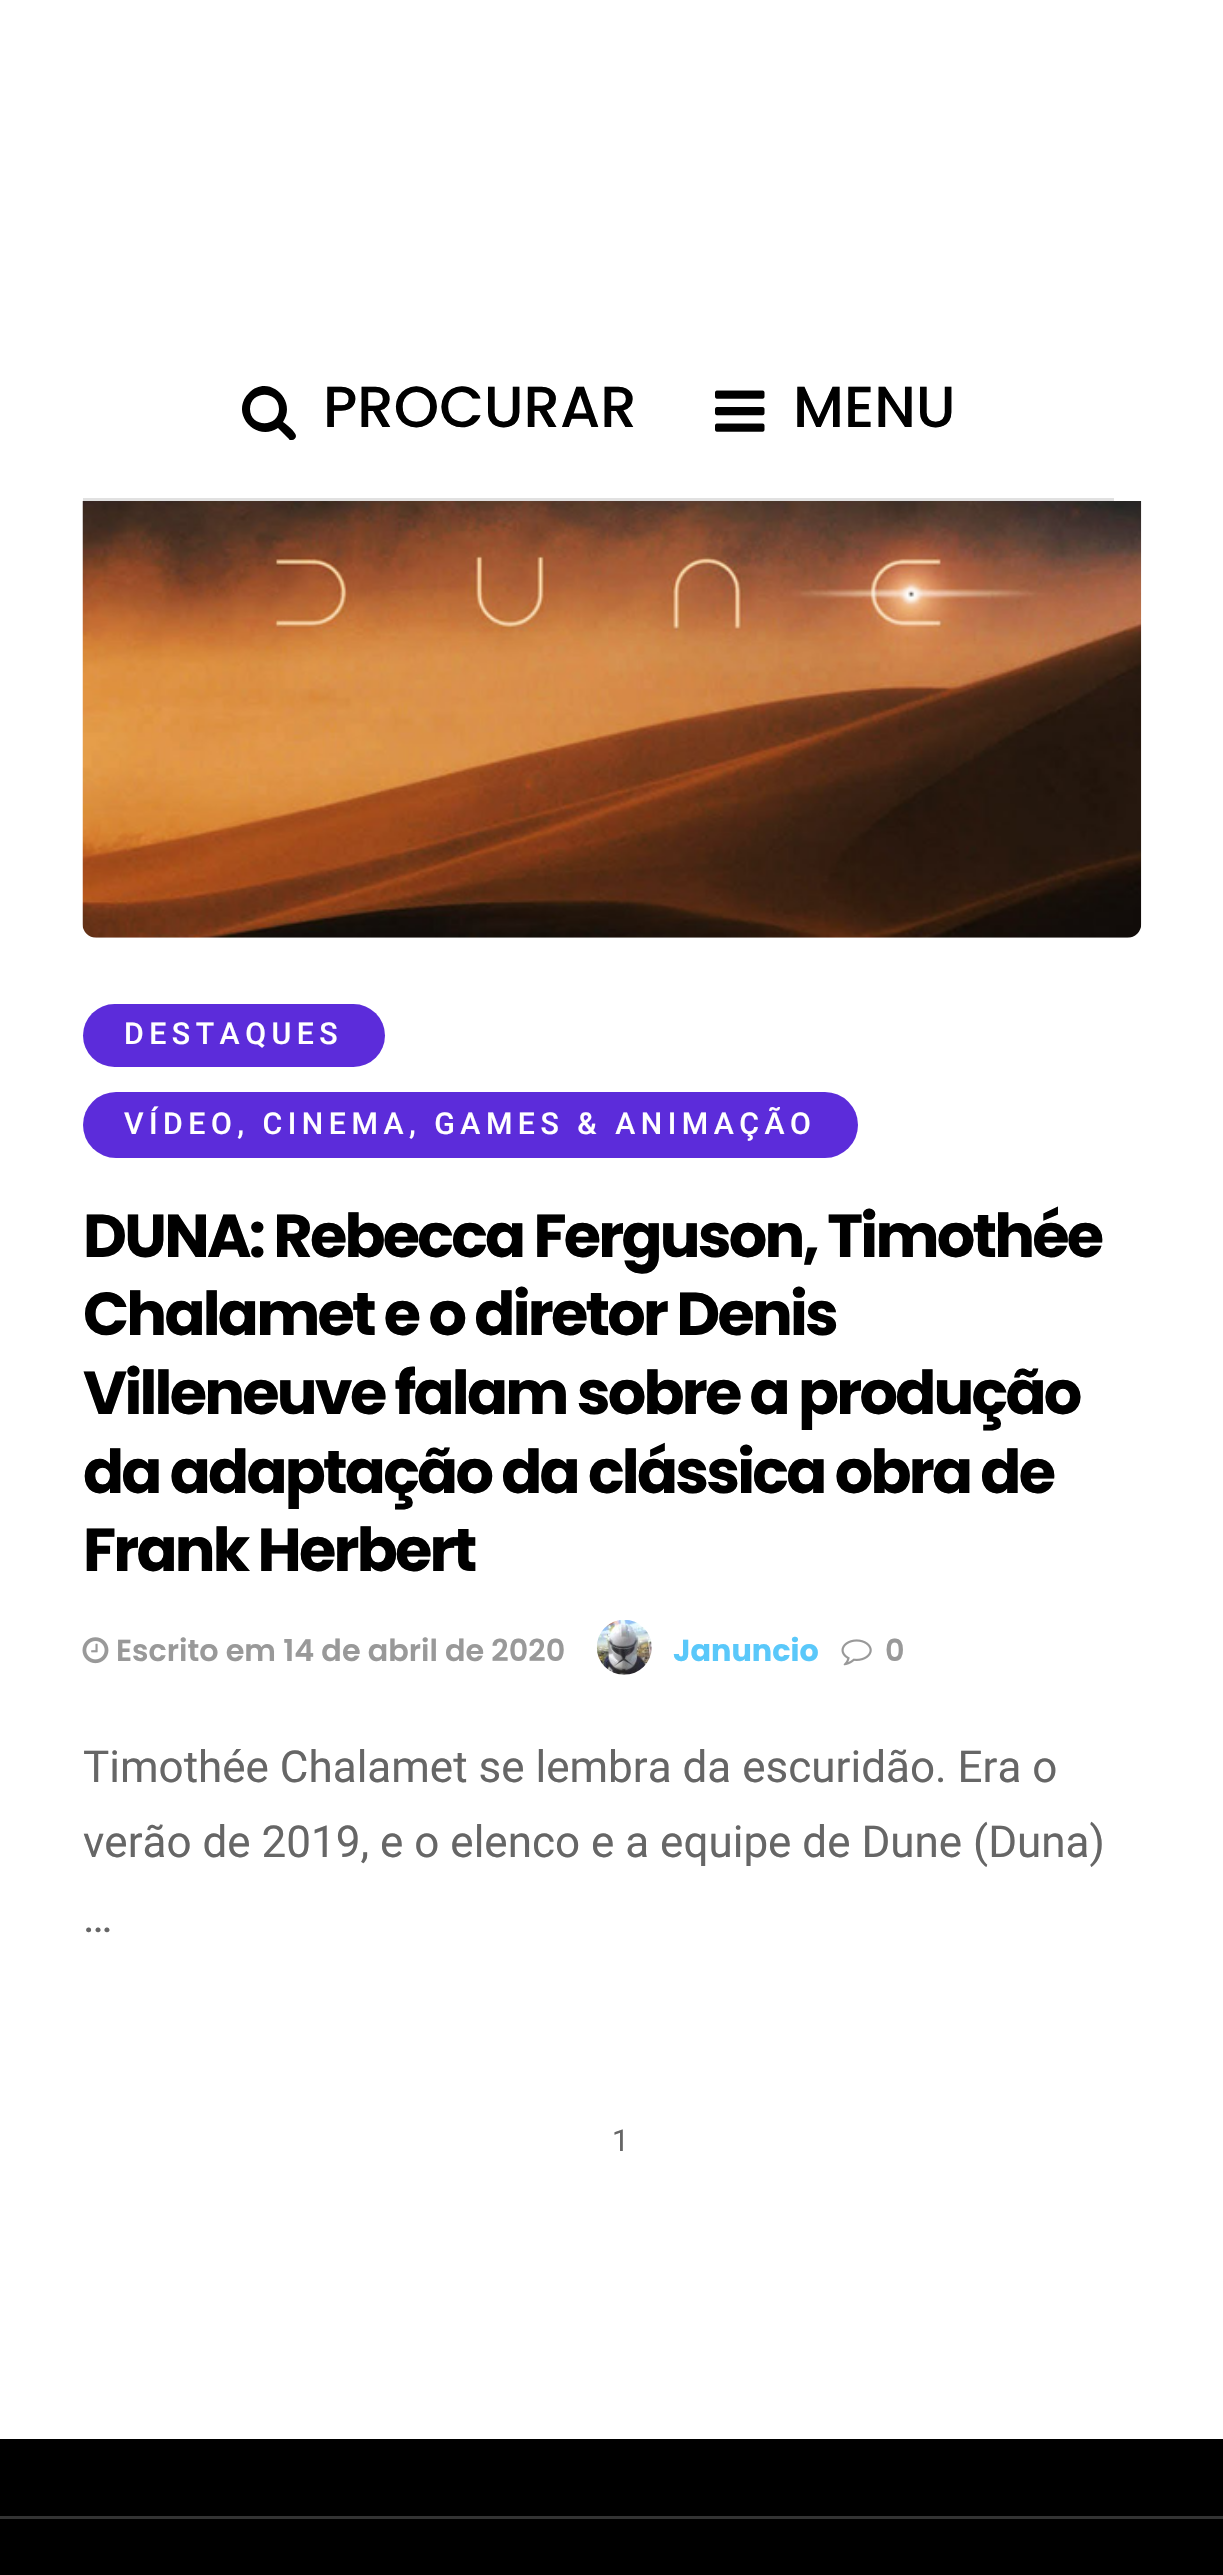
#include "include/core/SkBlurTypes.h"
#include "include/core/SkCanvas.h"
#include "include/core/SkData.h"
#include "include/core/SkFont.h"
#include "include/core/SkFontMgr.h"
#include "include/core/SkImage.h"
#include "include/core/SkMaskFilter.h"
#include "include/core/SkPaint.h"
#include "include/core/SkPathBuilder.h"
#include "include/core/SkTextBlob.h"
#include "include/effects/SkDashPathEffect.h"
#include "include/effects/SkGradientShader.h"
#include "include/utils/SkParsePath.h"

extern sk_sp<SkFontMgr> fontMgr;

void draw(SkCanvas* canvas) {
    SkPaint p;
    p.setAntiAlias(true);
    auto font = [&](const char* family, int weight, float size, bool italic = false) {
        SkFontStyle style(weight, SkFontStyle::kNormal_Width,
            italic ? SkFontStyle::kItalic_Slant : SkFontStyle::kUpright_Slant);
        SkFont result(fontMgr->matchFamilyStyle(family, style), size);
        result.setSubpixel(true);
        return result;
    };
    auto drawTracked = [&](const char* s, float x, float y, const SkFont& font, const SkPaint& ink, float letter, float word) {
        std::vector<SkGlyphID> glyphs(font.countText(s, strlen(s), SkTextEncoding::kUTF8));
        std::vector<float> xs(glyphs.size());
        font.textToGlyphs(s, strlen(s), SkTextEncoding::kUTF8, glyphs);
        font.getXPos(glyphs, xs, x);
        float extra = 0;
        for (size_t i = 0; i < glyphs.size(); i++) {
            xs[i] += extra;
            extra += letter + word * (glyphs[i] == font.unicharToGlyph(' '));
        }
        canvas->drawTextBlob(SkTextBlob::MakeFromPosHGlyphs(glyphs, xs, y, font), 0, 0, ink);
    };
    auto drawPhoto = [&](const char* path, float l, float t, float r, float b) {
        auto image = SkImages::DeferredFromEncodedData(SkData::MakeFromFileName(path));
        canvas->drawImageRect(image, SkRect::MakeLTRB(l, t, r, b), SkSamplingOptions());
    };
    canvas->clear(0xFFFFFFFF);
    p.setColor(0xFFE1E1E1);
    canvas->drawRect(SkRect::MakeLTRB(83, 498, 1114, 501), p);
    p.setColor(0xFF000000);
    canvas->drawPath(SkPathBuilder().moveTo(279, 409).cubicTo(279, 428, 250, 428, 250, 409).cubicTo(250, 390, 279, 390, 279, 409).close().moveTo(296, 436).cubicTo(296, 432, 286, 424, 283, 422).cubicTo(298, 400, 268, 373, 249, 393).cubicTo(229, 413, 256, 443, 278, 428).lineTo(289, 439).cubicTo(289, 440, 290, 440, 292, 440).cubicTo(294, 440, 296, 438, 296, 436).close().detach(), p);
    auto font1 = font("Poppins", 500, 57.75f);
    canvas->drawString("PROCURAR", 323, 427, font1, p);
    drawPhoto("media/1.png", 715, 390, 765, 432);
    canvas->drawString("MENU", 793, 427, font1, p);
    drawPhoto("media/2.png", 82, 501, 1142, 938);
    p.setColor(0xFF5C2CDA);
    canvas->drawRoundRect(SkRect::MakeLTRB(83, 1004, 385, 1067), 31.5f, 31.5f, p);
    auto font2 = font("Roboto", 500, 30.25f);
    p.setColor(0xFFFFFFFF);
    drawTracked("DESTAQUES", 124, 1044, font2, p, 5.5f, 0);
    p.setColor(0xFF5C2CDA);
    canvas->drawRoundRect(SkRect::MakeLTRB(83, 1092, 858, 1158), 33, 33, p);
    p.setColor(0xFFFFFFFF);
    drawTracked("VÍDEO, CINEMA, GAMES & ANIMAÇÃO", 124, 1134, font2, p, 5.5f, 0);
    auto font3 = font("Poppins", 700, 60.5f);
    p.setColor(0xFF000000);
    {
        const struct { const char* s; float x, y; } items[] = {
            {"DUNA: Rebecca Ferguson, Timothée", 83, 1257},
            {"Chalamet e o diretor Denis", 83, 1335},
            {"Villeneuve falam sobre a produção", 83, 1414},
            {"da adaptação da clássica obra de", 83, 1493},
            {"Frank Herbert", 83, 1571},
        };
        for (auto [s, x, y] : items) {
            drawTracked(s, x, y, font3, p, -2.75f, 0);
        }
    }
    drawPhoto("media/3.png", 82, 1637, 109, 1664);
    auto font4 = font("Poppins", 600, 30.25f);
    p.setColor(0xFF999999);
    canvas->drawString("Escrito em 14 de abril de 2020", 116, 1661, font4, p);
    drawPhoto("media/4.png", 596, 1620, 652, 1675);
    auto font5 = font("Poppins", 700, 30.25f);
    p.setColor(0xFF5AC8FA);
    canvas->drawString("Januncio", 673, 1661, font5, p);
    drawPhoto("media/5.png", 841, 1639, 872, 1666);
    p.setColor(0xFF999999);
    canvas->drawString("0", 885, 1661, font4, p);
    auto font6 = font("Roboto", 400, 44);
    p.setColor(0xFF666666);
    {
        const struct { const char* s; float x, y; } items[] = {
            {"Timothée Chalamet se lembra da escuridão. Era o", 83, 1782},
            {"verão de 2019, e o elenco e a equipe de Dune (Duna)", 83, 1857},
            {"…", 83, 1932},
        };
        for (auto [s, x, y] : items) {
            canvas->drawString(s, x, y, font6, p);
        }
    }
    auto font7 = font("Roboto", 400, 30.25f);
    canvas->drawString("1", 612, 2151, font7, p);
    p.setColor(0xFF000000);
    canvas->drawRect(SkRect::MakeLTRB(0, 2439, 1223, 2575), p);
    p.setColor(0xFF333333);
    canvas->drawRect(SkRect::MakeLTRB(0, 2516, 1223, 2519), p);
}
